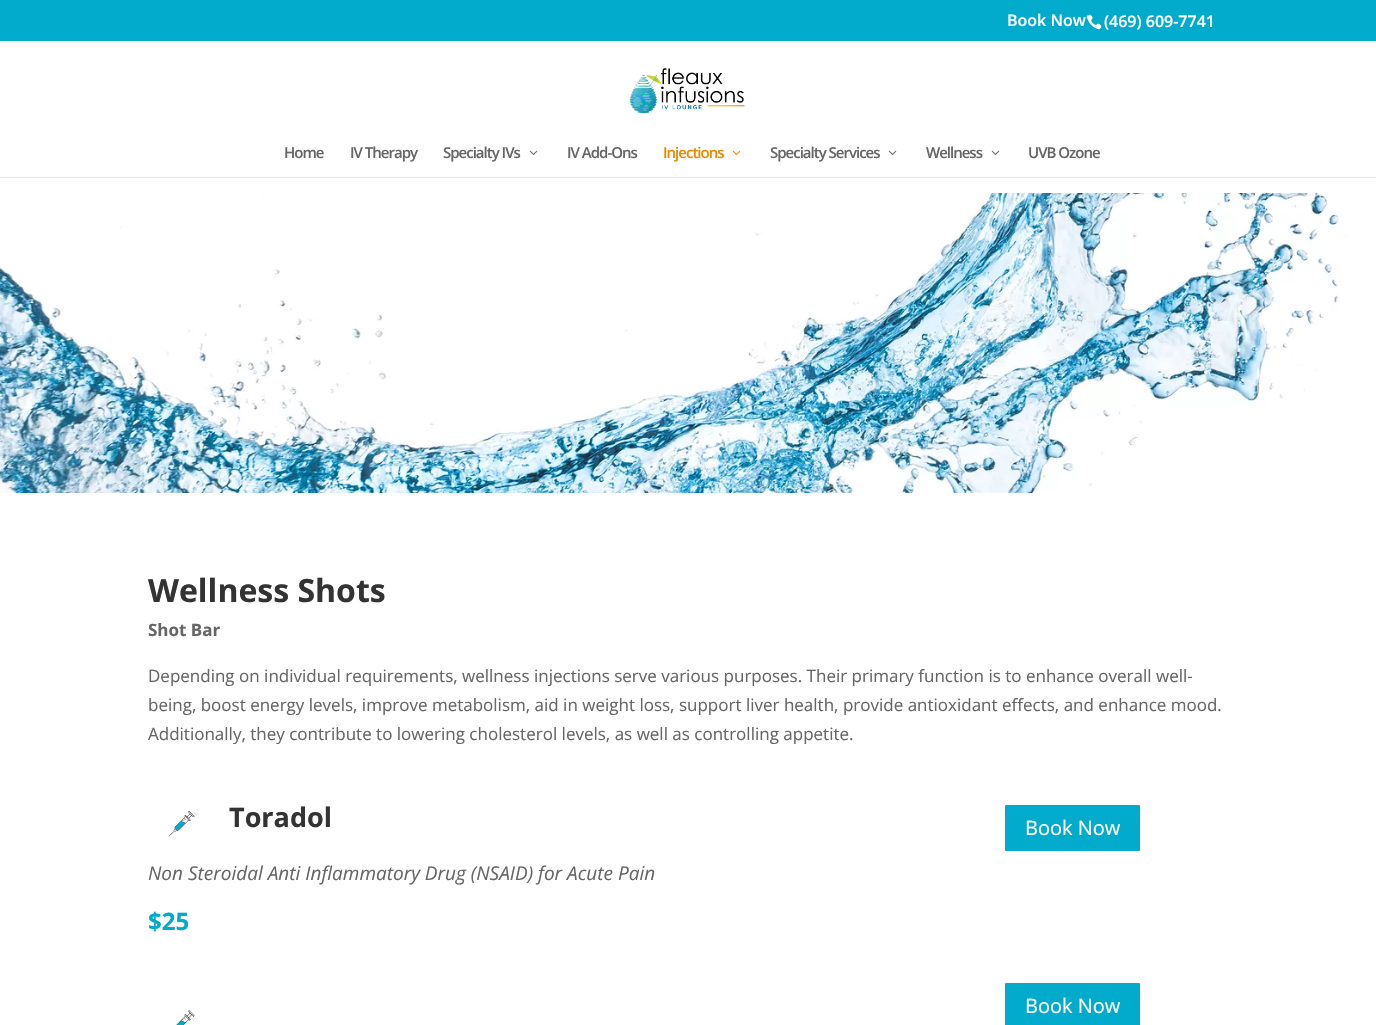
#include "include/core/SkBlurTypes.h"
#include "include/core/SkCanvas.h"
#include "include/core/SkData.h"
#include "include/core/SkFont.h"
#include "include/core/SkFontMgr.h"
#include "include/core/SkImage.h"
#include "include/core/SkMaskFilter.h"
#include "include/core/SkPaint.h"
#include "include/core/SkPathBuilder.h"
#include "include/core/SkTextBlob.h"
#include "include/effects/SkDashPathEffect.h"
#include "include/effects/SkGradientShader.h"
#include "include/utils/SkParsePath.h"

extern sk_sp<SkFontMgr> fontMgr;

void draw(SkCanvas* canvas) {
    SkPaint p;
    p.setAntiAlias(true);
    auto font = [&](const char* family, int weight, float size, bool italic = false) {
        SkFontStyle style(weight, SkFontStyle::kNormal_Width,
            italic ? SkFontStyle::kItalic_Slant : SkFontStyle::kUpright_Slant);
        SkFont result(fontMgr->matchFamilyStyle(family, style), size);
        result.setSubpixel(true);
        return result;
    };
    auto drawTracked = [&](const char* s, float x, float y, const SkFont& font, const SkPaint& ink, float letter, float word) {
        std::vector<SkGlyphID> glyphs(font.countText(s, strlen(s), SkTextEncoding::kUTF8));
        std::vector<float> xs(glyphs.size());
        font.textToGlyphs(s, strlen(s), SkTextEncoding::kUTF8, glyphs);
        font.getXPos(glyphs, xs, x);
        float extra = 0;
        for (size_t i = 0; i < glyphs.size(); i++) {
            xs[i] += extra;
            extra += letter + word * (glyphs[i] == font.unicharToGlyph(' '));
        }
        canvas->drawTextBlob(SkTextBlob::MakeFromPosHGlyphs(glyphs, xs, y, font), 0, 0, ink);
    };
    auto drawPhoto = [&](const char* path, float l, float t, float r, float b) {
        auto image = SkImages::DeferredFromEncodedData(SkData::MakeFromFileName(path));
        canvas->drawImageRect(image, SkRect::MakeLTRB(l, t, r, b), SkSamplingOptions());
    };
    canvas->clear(0xFFFFFFFF);
    p.setColor(0xFF02AACC);
    canvas->drawRect(SkRect::MakeLTRB(0, 0, 1376, 41), p);
    auto font1 = font("Open Sans", 600, 16);
    p.setColor(0xFFFFFFFF);
    canvas->drawString("Book Now", 1007, 26, font1, p);
    drawPhoto("media/1.png", 1086, 14, 1102, 30);
    canvas->drawString("(469) 609-7741", 1104, 27, font1, p);
    p.setColor(0xFFE6E6E6);
    canvas->drawRect(SkRect::MakeLTRB(0, 177, 1376, 178), p);
    drawPhoto("media/2.png", 629, 68, 745, 114);
    auto font2 = font("Open Sans", 600, 15);
    p.setColor(0xFF666666);
    {
        const struct { const char* s; float x, y; } items[] = {
            {"Home", 284, 158},
            {"IV Therapy", 350, 158},
            {"Specialty IVs", 443, 158},
        };
        for (auto [s, x, y] : items) {
            drawTracked(s, x, y, font2, p, -1, 0);
        }
    }
    drawPhoto("media/3.png", 529, 150, 538, 155);
    drawTracked("IV Add-Ons", 567, 158, font2, p, -1, 0);
    p.setColor(0xFFEA8800);
    drawTracked("Injections", 663, 158, font2, p, -1, 0);
    drawPhoto("media/4.png", 732, 150, 741, 155);
    p.setColor(0xFF666666);
    drawTracked("Specialty Services", 770, 158, font2, p, -1, 0);
    drawPhoto("media/3.png", 888, 150, 897, 155);
    drawTracked("Wellness", 926, 158, font2, p, -1, 0);
    drawPhoto("media/3.png", 991, 150, 1000, 155);
    drawTracked("UVB Ozone", 1028, 158, font2, p, -1, 0);
    drawPhoto("media/5.png", 0, 193, 1347, 493);
    auto font3 = font("Open Sans", 700, 32);
    p.setColor(0xFF333333);
    canvas->drawString("Wellness Shots", 148, 602, font3, p);
    auto font4 = font("Open Sans", 700, 17);
    p.setColor(0xFF666666);
    canvas->drawString("Shot Bar", 148, 636, font4, p);
    auto font5 = font("Open Sans", 400, 17);
    {
        const struct { const char* s; float x, y; } items[] = {
            {"Depending on individual requirements, wellness injections serve various purposes. Their primary function is to enhance overall well-", 148, 682},
            {"being, boost energy levels, improve metabolism, aid in weight loss, support liver health, provide antioxidant effects, and enhance mood.", 148, 711},
            {"Additionally, they contribute to lowering cholesterol levels, as well as controlling appetite.", 148, 740},
        };
        for (auto [s, x, y] : items) {
            canvas->drawString(s, x, y, font5, p);
        }
    }
    drawPhoto("media/6.png", 168, 811, 195, 837);
    auto font6 = font("Open Sans", 700, 27);
    p.setColor(0xFF333333);
    canvas->drawString("Toradol", 229, 827, font6, p);
    auto font7 = font("Open Sans", 400, 19, true);
    p.setColor(0xFF666666);
    canvas->drawString("Non Steroidal Anti Inflammatory Drug (NSAID) for Acute Pain", 148, 880, font7, p);
    auto font8 = font("Open Sans", 700, 24);
    p.setColor(0xFF02AACC);
    canvas->drawString("$25", 148, 930, font8, p);
    canvas->drawRoundRect(SkRect::MakeLTRB(1004, 804, 1141, 852), 2, 2, p);
    p.setStyle(SkPaint::kStroke_Style);
    p.setStrokeWidth(2);
    p.setColor(0xFFFFFFFF);
    canvas->drawRoundRect(SkRect::MakeLTRB(1004, 804, 1141, 852), 2, 2, p);
    auto font9 = font("Open Sans", 400, 20);
    p.setStyle(SkPaint::kFill_Style);
    canvas->drawString("Book Now", 1025, 835, font9, p);
    p.setColor(0xFF02AACC);
    canvas->drawRoundRect(SkRect::MakeLTRB(1004, 982, 1141, 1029), 2, 2, p);
    p.setStyle(SkPaint::kStroke_Style);
    p.setColor(0xFFFFFFFF);
    canvas->drawRoundRect(SkRect::MakeLTRB(1004, 982, 1141, 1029), 2, 2, p);
    p.setStyle(SkPaint::kFill_Style);
    canvas->drawString("Book Now", 1025, 1013, font9, p);
    drawPhoto("media/7.png", 176, 1010, 195, 1025);
}
